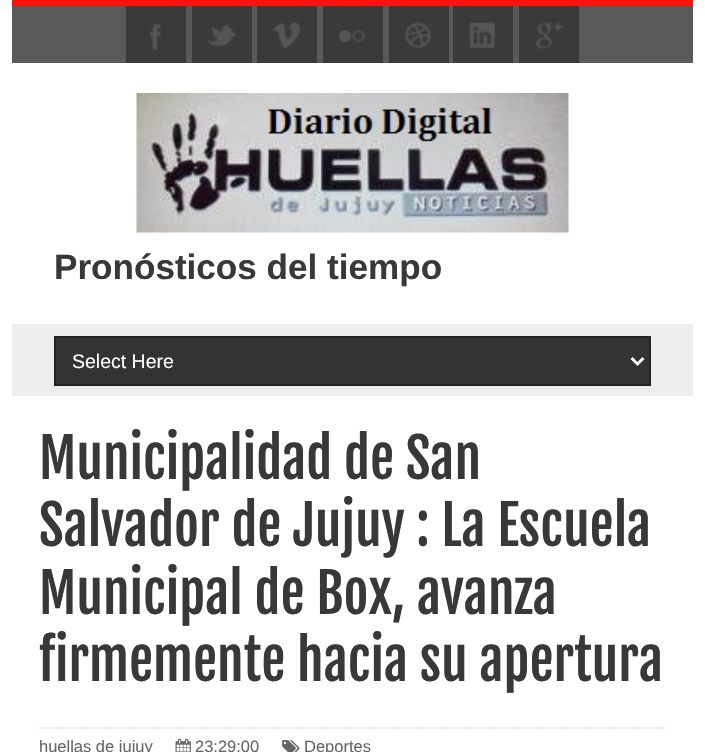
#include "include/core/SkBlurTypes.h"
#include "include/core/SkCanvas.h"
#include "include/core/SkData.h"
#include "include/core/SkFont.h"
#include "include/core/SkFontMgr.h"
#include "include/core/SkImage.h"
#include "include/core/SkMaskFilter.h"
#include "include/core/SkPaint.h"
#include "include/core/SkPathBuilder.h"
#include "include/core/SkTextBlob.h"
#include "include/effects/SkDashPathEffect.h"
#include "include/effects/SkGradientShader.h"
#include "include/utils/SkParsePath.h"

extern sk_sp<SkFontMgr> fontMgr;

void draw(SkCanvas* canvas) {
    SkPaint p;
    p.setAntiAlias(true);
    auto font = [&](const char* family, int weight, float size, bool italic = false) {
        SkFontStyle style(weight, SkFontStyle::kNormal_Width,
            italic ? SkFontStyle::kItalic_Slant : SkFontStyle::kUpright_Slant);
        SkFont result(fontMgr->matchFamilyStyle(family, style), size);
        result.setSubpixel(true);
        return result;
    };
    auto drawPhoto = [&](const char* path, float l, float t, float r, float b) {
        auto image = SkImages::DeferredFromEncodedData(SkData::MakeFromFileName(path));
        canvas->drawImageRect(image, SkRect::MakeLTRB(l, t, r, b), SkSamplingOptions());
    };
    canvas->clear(0xFFFFFFFF);
    {
        const struct { float l, t, r, b; SkColor color; } items[] = {
            {12, 6, 693, 63, 0xFF57595A},
            {12, 0, 693, 6, 0xFFFF120C},
            {126, 6, 186, 63, 0xFF3A3A3A},
        };
        for (auto [l, t, r, b, color] : items) {
            p.setColor(color);
            canvas->drawRect(SkRect::MakeLTRB(l, t, r, b), p);
        }
    }
    drawPhoto("media/1.png", 150, 24, 161, 50);
    canvas->drawRect(SkRect::MakeLTRB(192, 6, 252, 63), p);
    drawPhoto("media/2.png", 207, 24, 236, 47);
    canvas->drawRect(SkRect::MakeLTRB(257, 6, 317, 63), p);
    drawPhoto("media/3.png", 273, 22, 301, 48);
    canvas->drawRect(SkRect::MakeLTRB(323, 6, 383, 63), p);
    drawPhoto("media/4.png", 339, 30, 365, 43);
    canvas->drawRect(SkRect::MakeLTRB(389, 6, 449, 63), p);
    drawPhoto("media/5.png", 405, 22, 431, 48);
    canvas->drawRect(SkRect::MakeLTRB(453, 6, 513, 63), p);
    drawPhoto("media/6.png", 469, 22, 495, 48);
    canvas->drawRect(SkRect::MakeLTRB(519, 6, 579, 63), p);
    drawPhoto("media/7.png", 535, 22, 563, 49);
    drawPhoto("media/8.png", 136, 93, 569, 233);
    auto font1 = font("Liberation Sans", 700, 35.1f);
    p.setColor(0xFF383838);
    canvas->drawString("Pronósticos del tiempo", 54, 279, font1, p);
    p.setColor(0xFFEEEEEE);
    canvas->drawRect(SkRect::MakeLTRB(12, 324, 693, 396), p);
    p.setColor(0xFF333333);
    canvas->drawRect(SkRect::MakeLTRB(55, 337, 650, 385), p);
    p.setStyle(SkPaint::kStroke_Style);
    p.setStrokeWidth(2);
    p.setColor(0xFF232323);
    canvas->drawRect(SkRect::MakeLTRB(55, 337, 650, 385), p);
    p.setStrokeWidth(3);
    p.setColor(0xFFFFFFFF);
    canvas->drawPath(SkPathBuilder().moveTo(631.5f, 358).lineTo(637.5f, 364).lineTo(643.5f, 358).detach(), p);
    auto font2 = font("Liberation Sans", 400, 19.5f);
    p.setStyle(SkPaint::kFill_Style);
    canvas->drawString("Select Here", 72, 368, font2, p);
    auto font3 = font("Fjalla One", 400, 54);
    p.setColor(0xFF383838);
    {
        const struct { const char* s; float x, y; } items[] = {
            {"Municipalidad de San", 39, 479},
            {"Salvador de Jujuy : La Escuela", 39, 546},
            {"Municipal de Box, avanza", 39, 614},
            {"firmemente hacia su apertura", 39, 681},
        };
        for (auto [s, x, y] : items) {
            canvas->drawString(s, x, y, font3, p);
        }
    }
    p.setStyle(SkPaint::kStroke_Style);
    p.setStrokeWidth(1.5f);
    p.setColor(0xFFDEDEDE);
    p.setPathEffect(SkDashPathEffect::Make({{1.5f, 1.5f}}, 0));
    canvas->drawPath(SkPathBuilder().moveTo(39, 728).lineTo(666, 728).detach(), p);
    p.setPathEffect(nullptr);
    auto font4 = font("Liberation Sans", 400, 16.5f);
    p.setStyle(SkPaint::kFill_Style);
    p.setColor(0xFF666666);
    canvas->drawString("huellas de jujuy", 39, 752, font4, p);
    drawPhoto("media/9.png", 175, 738, 191, 752);
    canvas->drawString("23:29:00", 195, 752, font4, p);
    drawPhoto("media/10.png", 282, 740, 300, 752);
    canvas->drawString("Deportes", 304, 752, font4, p);
}
